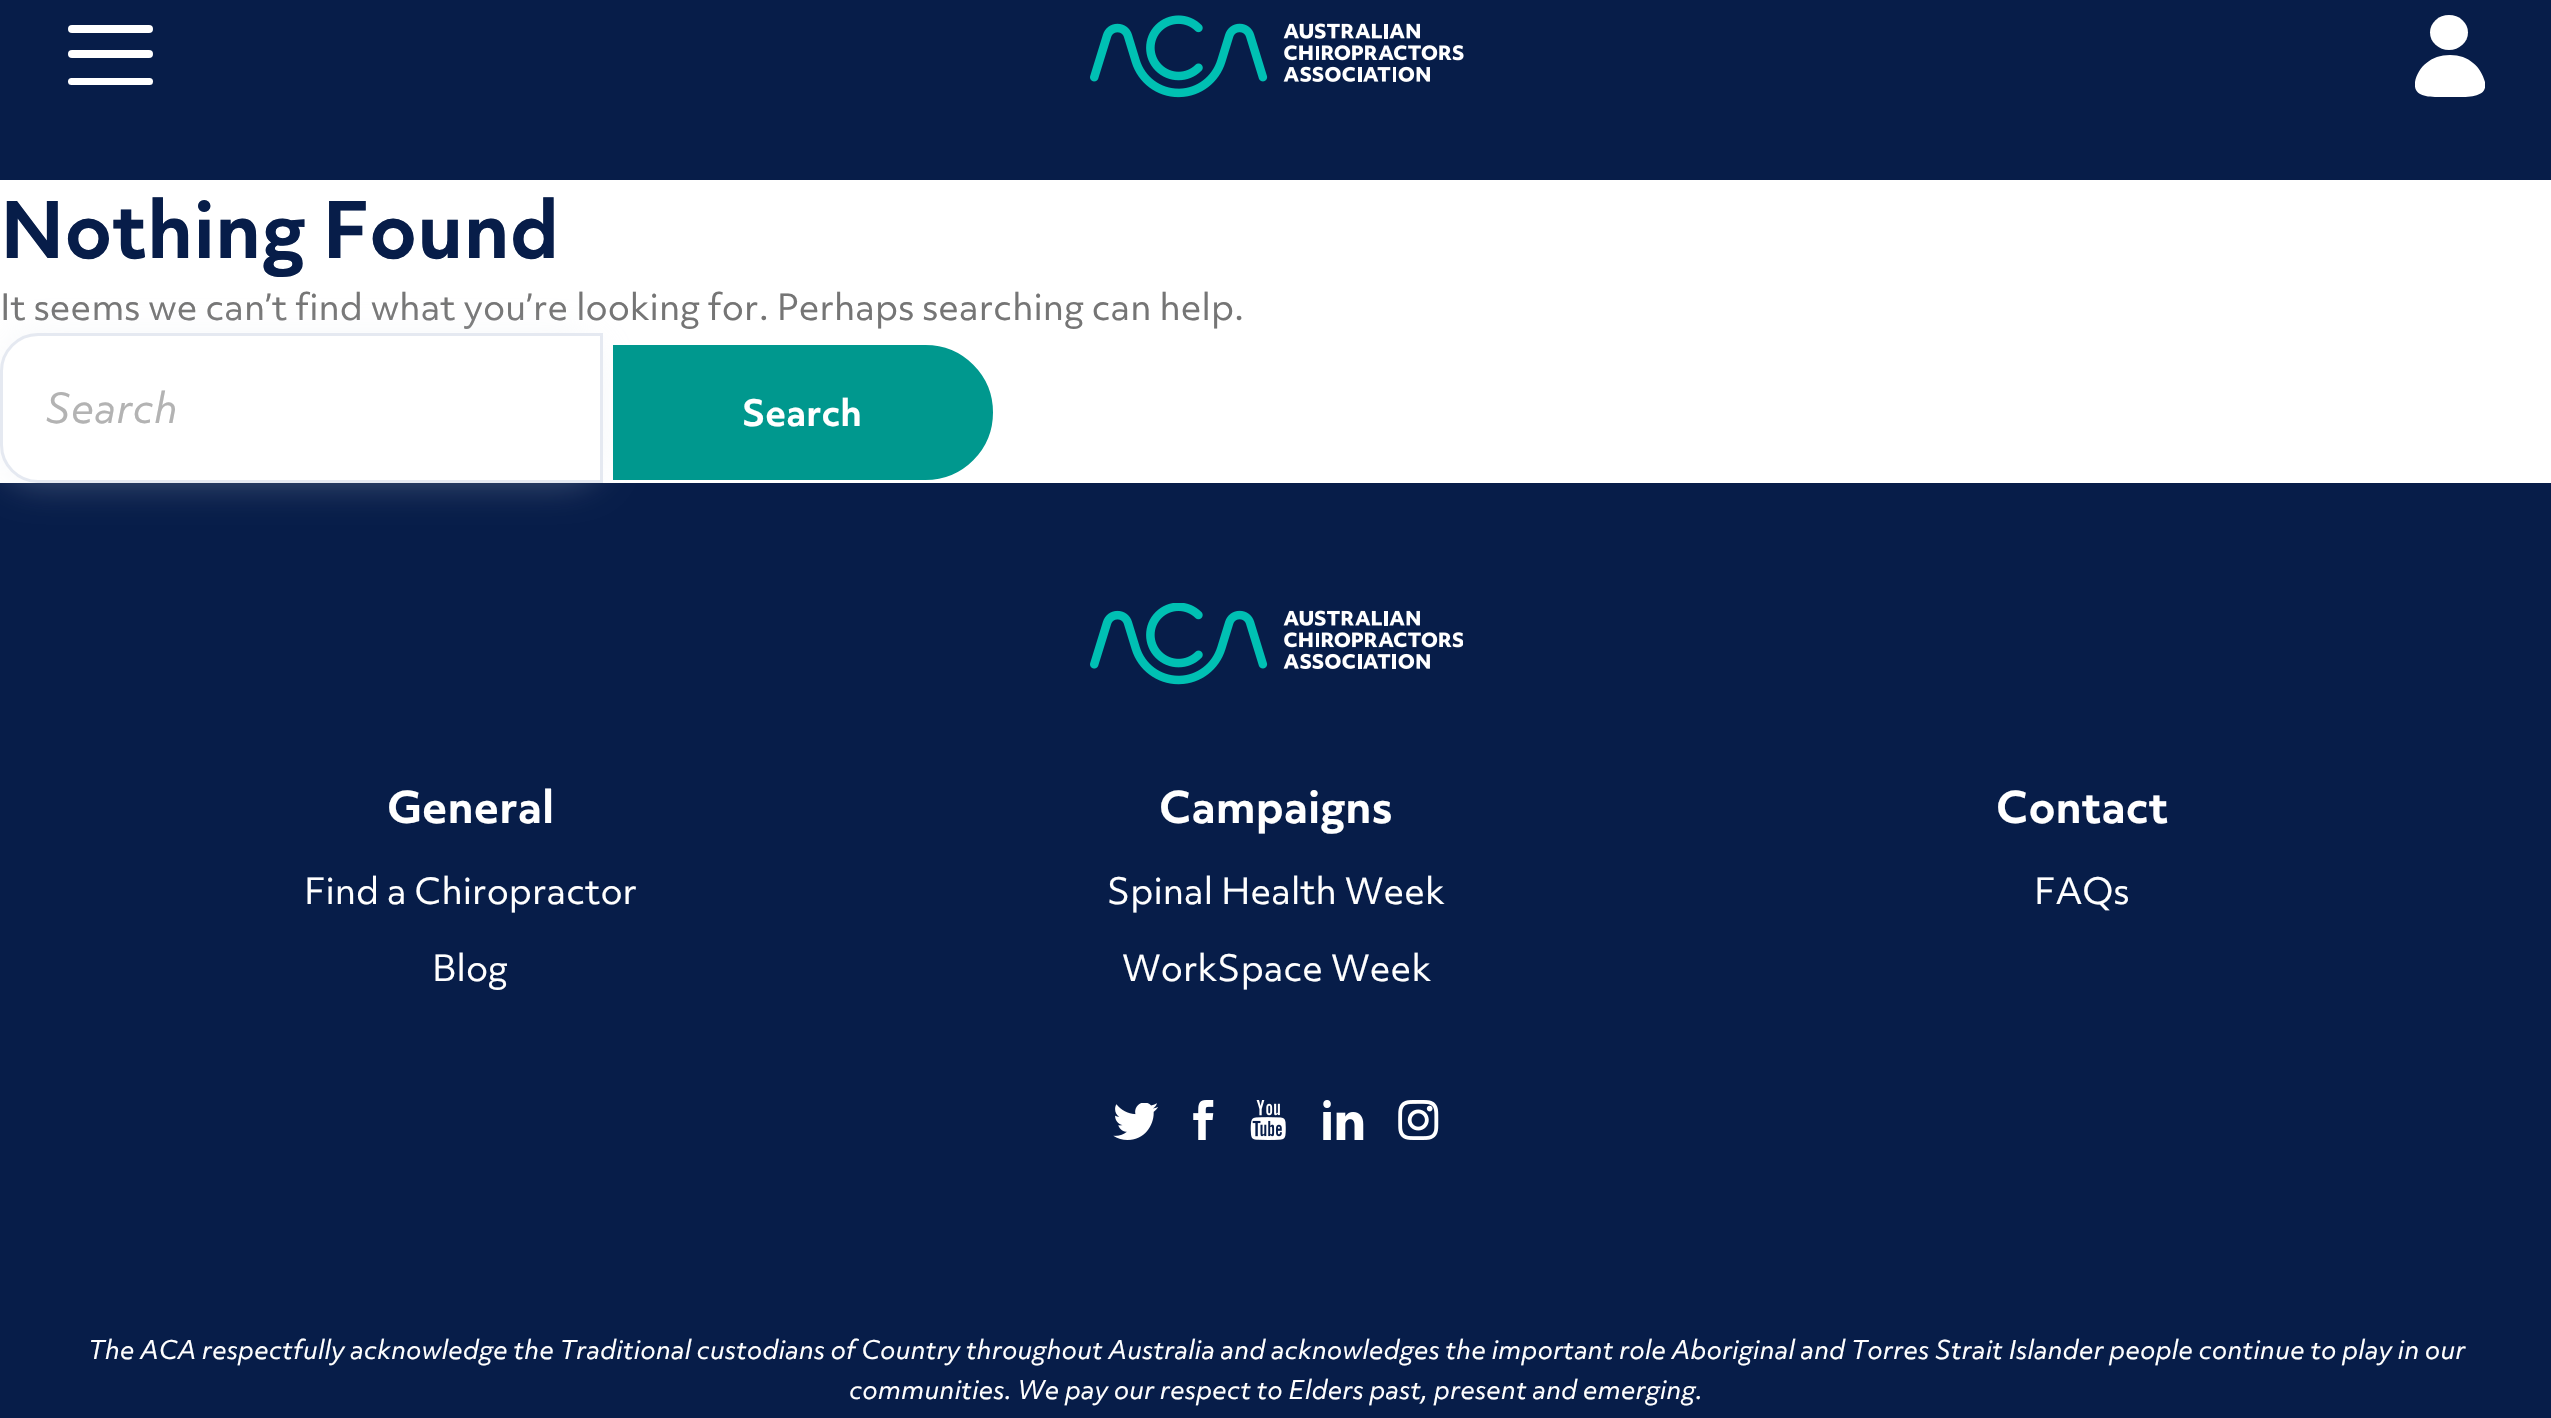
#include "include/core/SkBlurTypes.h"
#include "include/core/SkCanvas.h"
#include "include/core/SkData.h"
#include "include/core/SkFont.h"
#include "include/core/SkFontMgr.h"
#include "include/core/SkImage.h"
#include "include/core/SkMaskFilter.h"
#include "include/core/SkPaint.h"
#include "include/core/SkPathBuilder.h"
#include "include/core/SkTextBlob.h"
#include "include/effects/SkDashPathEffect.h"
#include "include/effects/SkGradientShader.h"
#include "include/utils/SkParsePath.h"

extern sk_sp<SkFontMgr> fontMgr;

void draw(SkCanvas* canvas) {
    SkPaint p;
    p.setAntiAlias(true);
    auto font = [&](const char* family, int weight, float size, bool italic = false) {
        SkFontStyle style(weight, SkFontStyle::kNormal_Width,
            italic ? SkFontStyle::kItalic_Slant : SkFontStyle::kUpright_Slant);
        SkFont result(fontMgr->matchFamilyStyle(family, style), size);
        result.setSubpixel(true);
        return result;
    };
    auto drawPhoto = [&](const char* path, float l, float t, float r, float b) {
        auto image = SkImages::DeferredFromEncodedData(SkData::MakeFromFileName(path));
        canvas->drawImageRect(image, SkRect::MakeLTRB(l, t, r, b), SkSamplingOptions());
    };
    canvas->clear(0xFFFFFFFF);
    p.setColor(0xFF071D49);
    canvas->drawRect(SkRect::MakeLTRB(0, 0, 2551, 180), p);
    p.setColor(0xFFFFFFFF);
    canvas->drawRoundRect(SkRect::MakeLTRB(68, 25, 153, 33), 4, 4, p);
    canvas->drawRoundRect(SkRect::MakeLTRB(68, 50, 153, 58), 4, 4, p);
    canvas->drawRoundRect(SkRect::MakeLTRB(68, 78, 153, 85), 3.5f, 3.5f, p);
    drawPhoto("media/1.png", 1090, 15, 1464, 98);
    canvas->drawOval(SkRect::MakeLTRB(2430, 15, 2468, 50), p);
    canvas->save();
    canvas->clipRect(SkRect::MakeLTRB(2415, 15, 2485, 98));
    canvas->drawPath(SkPathBuilder().moveTo(2449, 97).cubicTo(2468, 97, 2488, 98, 2485, 82).cubicTo(2481, 67, 2469, 55, 2450, 55).cubicTo(2431, 55, 2418, 67, 2415, 82).cubicTo(2413, 98, 2430, 97, 2449, 97).close().detach(), p);
    canvas->restore();
    auto font1 = font("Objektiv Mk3", 700, 75);
    p.setColor(0xFF071D49);
    canvas->drawString("Nothing Found", 0, 258, font1, p);
    auto font2 = font("Objektiv Mk3", 400, 35);
    p.setColor(0xFF757575);
    canvas->drawString("It seems we can’t find what you’re looking for. Perhaps searching can help.", 0, 320, font2, p);
    p.setColor(0xFF071D49);
    canvas->drawRect(SkRect::MakeLTRB(0, 483, 2551, 1418), p);
    p.setColor(0x47E0E5EE);
    p.setMaskFilter(SkMaskFilter::MakeBlur(kNormal_SkBlurStyle, 17.5f));
    canvas->drawRoundRect(SkRect::MakeLTRB(0, 333, 603, 483), 38, 38, p);
    p.setMaskFilter(nullptr);
    p.setColor(0xFFFFFFFF);
    canvas->drawPath(SkPathBuilder().moveTo(38, 334.5f).lineTo(601.5f, 334.5f).lineTo(601.5f, 481.5f).lineTo(38, 481.5f).cubicTo(18, 481.5f, 1.5f, 465, 1.5f, 445).lineTo(1.5f, 371).cubicTo(1.5f, 351, 18, 334.5f, 38, 334.5f).close().detach(), p);
    p.setStyle(SkPaint::kStroke_Style);
    p.setStrokeWidth(3);
    p.setColor(0xFFE5E9F1);
    canvas->drawPath(SkPathBuilder().moveTo(38, 334.5f).lineTo(601.5f, 334.5f).lineTo(601.5f, 481.5f).lineTo(38, 481.5f).cubicTo(18, 481.5f, 1.5f, 465, 1.5f, 445).lineTo(1.5f, 371).cubicTo(1.5f, 351, 18, 334.5f, 38, 334.5f).close().detach(), p);
    auto font3 = font("Objektiv Mk3", 400, 40, true);
    p.setStyle(SkPaint::kFill_Style);
    p.setColor(0xFFB3B3B3);
    canvas->drawString("Search", 45, 423, font3, p);
    p.setColor(0xFF00988E);
    canvas->drawPath(SkPathBuilder().moveTo(615.5f, 347.5f).lineTo(925.5f, 347.5f).cubicTo(961.5f, 347.5f, 990.5f, 376.5f, 990.5f, 412.5f).cubicTo(990.5f, 448.5f, 961.5f, 477.5f, 925.5f, 477.5f).lineTo(615.5f, 477.5f).close().detach(), p);
    p.setStyle(SkPaint::kStroke_Style);
    p.setStrokeWidth(5);
    canvas->drawPath(SkPathBuilder().moveTo(615.5f, 347.5f).lineTo(925.5f, 347.5f).cubicTo(961.5f, 347.5f, 990.5f, 376.5f, 990.5f, 412.5f).cubicTo(990.5f, 448.5f, 961.5f, 477.5f, 925.5f, 477.5f).lineTo(615.5f, 477.5f).close().detach(), p);
    auto font4 = font("Objektiv Mk3", 700, 35);
    p.setStyle(SkPaint::kFill_Style);
    p.setColor(0xFFFFFFFF);
    canvas->drawString("Search", 742, 426, font4, p);
    drawPhoto("media/2.png", 1090, 603, 1463, 685);
    auto font5 = font("Objektiv Mk3", 700, 42.5f);
    canvas->drawString("General", 387, 823, font5, p);
    canvas->drawString("Find a Chiropractor", 304, 904, font2, p);
    canvas->drawString("Blog", 432, 981, font2, p);
    canvas->drawString("Campaigns", 1159, 823, font5, p);
    canvas->drawString("Spinal Health Week", 1107, 904, font2, p);
    canvas->drawString("WorkSpace Week", 1122, 981, font2, p);
    canvas->drawString("Contact", 1996, 823, font5, p);
    canvas->drawString("FAQs", 2034, 904, font2, p);
    drawPhoto("media/3.png", 1113, 1103, 1158, 1140);
    drawPhoto("media/4.png", 1193, 1100, 1214, 1140);
    drawPhoto("media/5.png", 1250, 1100, 1286, 1140);
    drawPhoto("media/6.png", 1323, 1100, 1364, 1140);
    drawPhoto("media/7.png", 1398, 1100, 1439, 1140);
    auto font6 = font("Objektiv Mk3", 400, 25, true);
    canvas->drawString("The ACA respectfully acknowledge the Traditional custodians of Country throughout Australia and acknowledges the important role Aboriginal and Torres Strait Islander people continue to play in our", 88, 1359, font6, p);
    canvas->drawString("communities. We pay our respect to Elders past, present and emerging.", 849, 1399, font6, p);
}
